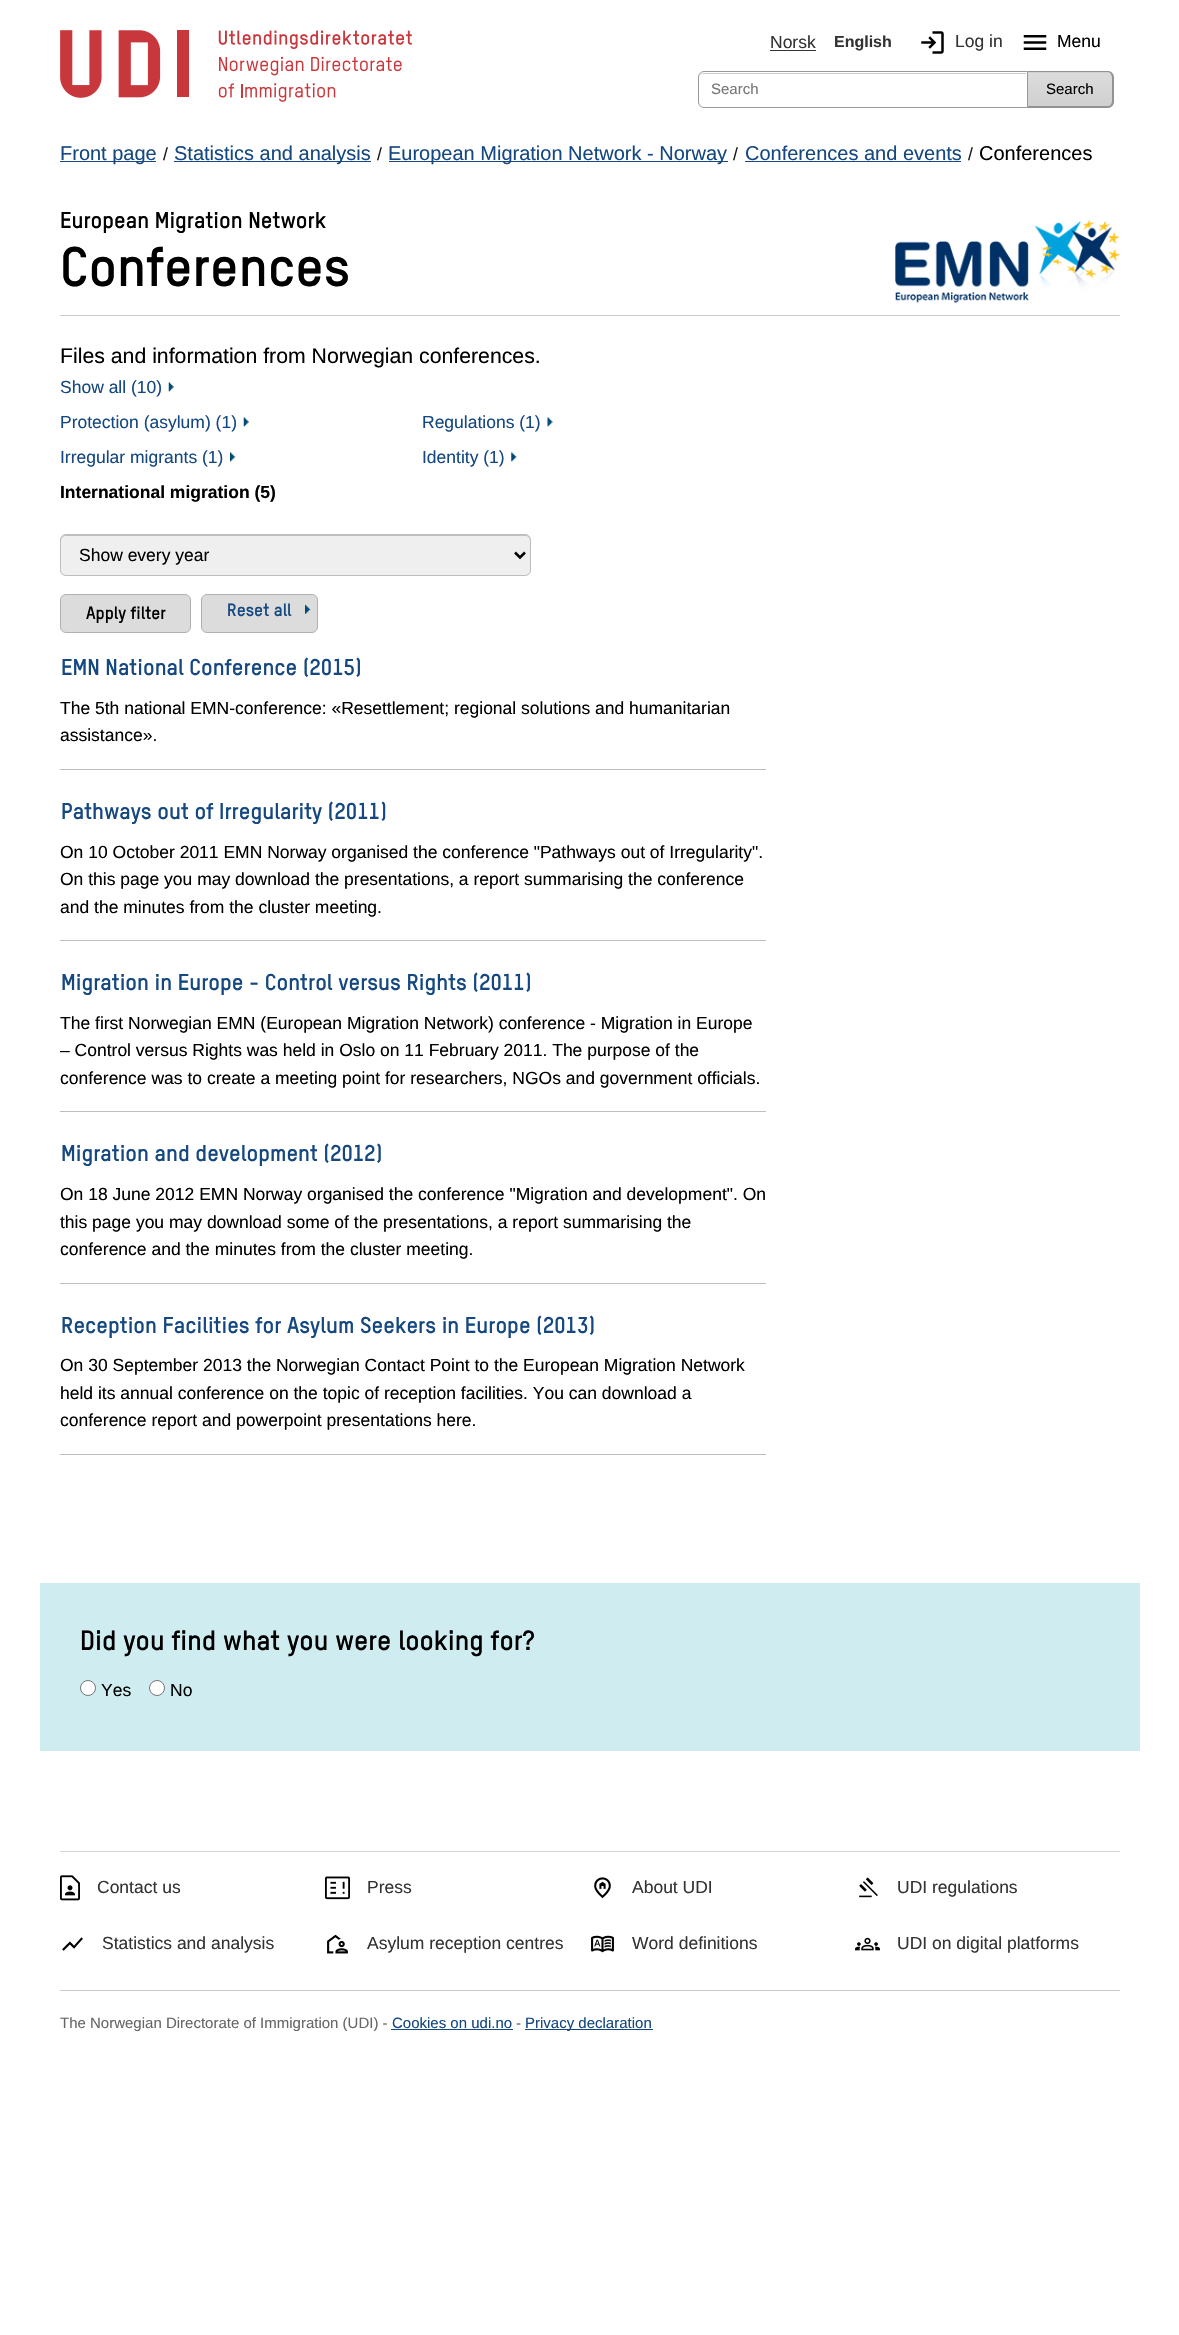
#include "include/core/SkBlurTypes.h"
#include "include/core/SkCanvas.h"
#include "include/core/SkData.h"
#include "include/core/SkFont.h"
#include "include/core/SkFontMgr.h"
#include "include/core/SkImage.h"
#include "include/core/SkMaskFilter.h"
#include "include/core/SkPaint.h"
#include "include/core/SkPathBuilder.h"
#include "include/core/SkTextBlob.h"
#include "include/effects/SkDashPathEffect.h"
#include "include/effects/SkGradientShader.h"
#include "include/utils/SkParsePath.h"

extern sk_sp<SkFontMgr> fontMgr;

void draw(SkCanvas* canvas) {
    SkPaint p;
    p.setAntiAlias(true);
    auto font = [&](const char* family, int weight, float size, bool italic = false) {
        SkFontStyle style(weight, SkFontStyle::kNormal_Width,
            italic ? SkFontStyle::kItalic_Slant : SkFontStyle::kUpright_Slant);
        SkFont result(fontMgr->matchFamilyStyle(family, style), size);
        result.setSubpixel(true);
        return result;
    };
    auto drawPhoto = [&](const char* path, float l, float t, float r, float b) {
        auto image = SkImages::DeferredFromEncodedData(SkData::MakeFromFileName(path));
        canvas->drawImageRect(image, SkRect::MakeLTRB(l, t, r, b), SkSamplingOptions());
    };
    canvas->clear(0xFFFFFFFF);
    drawPhoto("media/1.png", 60, 30, 412, 102);
    auto font1 = font("Liberation Sans", 400, 17.5f);
    p.setColor(0xFF333333);
    canvas->drawString("Norsk", 770, 48, font1, p);
    canvas->drawRect(SkRect::MakeLTRB(770, 50, 816, 51), p);
    auto font2 = font("Liberation Sans", 700, 16);
    canvas->drawString("English", 834, 47, font2, p);
    drawPhoto("media/2.png", 921, 31, 944, 54);
    canvas->drawString("Log in", 955, 47, font1, p);
    drawPhoto("media/3.png", 1023, 35, 1047, 50);
    p.setColor(0xFF000000);
    canvas->drawString("Menu", 1057, 47, font1, p);
    p.setColor(0xFFCCCCCC);
    canvas->drawPath(SkPathBuilder().moveTo(704, 74).lineTo(1026, 74).lineTo(1026, 73).lineTo(704, 73).cubicTo(701, 73, 699, 76, 699, 79).cubicTo(699, 76, 701, 74, 704, 74).close().detach(), p);
    p.setStyle(SkPaint::kStroke_Style);
    p.setStrokeWidth(1);
    p.setColor(0xFF999999);
    canvas->drawPath(SkPathBuilder().moveTo(704, 71.5f).lineTo(1027.5f, 71.5f).lineTo(1027.5f, 107.5f).lineTo(704, 107.5f).cubicTo(701, 107.5f, 698.5f, 105, 698.5f, 102).lineTo(698.5f, 77).cubicTo(698.5f, 74, 701, 71.5f, 704, 71.5f).close().detach(), p);
    auto font3 = font("Liberation Sans", 400, 15);
    p.setStyle(SkPaint::kFill_Style);
    p.setColor(0xFF757575);
    canvas->drawString("Search", 711, 94, font3, p);
    canvas->save();
    canvas->clipPath(SkPathBuilder().moveTo(1028, 71).lineTo(1108, 71).cubicTo(1111.5f, 71, 1114, 73.5f, 1114, 77).lineTo(1114, 102).cubicTo(1114, 105.5f, 1111.5f, 108, 1108, 108).lineTo(1028, 108).close().detach(), true);
    {
        const SkColor colors[] = {0xFFDCDCDC, 0xFFD0D0D0};
        const float stops[] = {0, 1};
        const SkPoint ends[] = {{1070, 39}, {1070, 73}};
        p.setShader(SkGradientShader::MakeLinear(ends, colors, stops, 2, SkTileMode::kClamp));
        p.setAlpha(255);
    }
    canvas->drawRect(SkRect::MakeLTRB(1028, 71, 1114, 73), p);
    {
        const SkColor colors[] = {0xFFDCDCDC, 0xFFD0D0D0};
        const float stops[] = {0, 1};
        const SkPoint ends[] = {{1070, 73}, {1070, 106}};
        p.setShader(SkGradientShader::MakeLinear(ends, colors, stops, 2, SkTileMode::kClamp));
        p.setAlpha(255);
    }
    canvas->drawRect(SkRect::MakeLTRB(1028, 73, 1114, 106), p);
    {
        const SkColor colors[] = {0xFFDCDCDC, 0xFFD0D0D0};
        const float stops[] = {0, 1};
        const SkPoint ends[] = {{1070, 106}, {1070, 140}};
        p.setShader(SkGradientShader::MakeLinear(ends, colors, stops, 2, SkTileMode::kClamp));
        p.setAlpha(255);
    }
    canvas->drawRect(SkRect::MakeLTRB(1108, 106, 1114, 108), p);
    canvas->restore();
    p.setShader(nullptr);
    p.setColor(0xFF929292);
    canvas->drawPath(SkPathBuilder(SkPathFillType::kEvenOdd).moveTo(1028, 71).lineTo(1108, 71).cubicTo(1111, 71, 1114, 74, 1114, 78).lineTo(1114, 101).cubicTo(1114, 105, 1111, 108, 1108, 108).lineTo(1028, 108).close().moveTo(1028, 72).lineTo(1108, 72).cubicTo(1110, 72, 1112, 75, 1112, 78).lineTo(1112, 101).cubicTo(1112, 104, 1110, 106, 1108, 106).lineTo(1028, 106).close().detach(), p);
    p.setColor(0xFF000000);
    canvas->drawString("Search", 1046, 94, font3, p);
    p.setColor(0xFF154881);
    canvas->drawRect(SkRect::MakeLTRB(60, 161, 156, 162), p);
    auto font4 = font("Liberation Sans", 400, 20);
    canvas->drawString("Front page", 60, 160, font4, p);
    p.setColor(0xFF1A1A1A);
    canvas->drawString("/", 163, 160, font1, p);
    p.setColor(0xFF154881);
    canvas->drawRect(SkRect::MakeLTRB(174, 161, 371, 162), p);
    canvas->drawString("Statistics and analysis", 174, 160, font4, p);
    p.setColor(0xFF1A1A1A);
    canvas->drawString("/", 377, 160, font1, p);
    p.setColor(0xFF154881);
    canvas->drawRect(SkRect::MakeLTRB(389, 161, 728, 162), p);
    canvas->drawString("European Migration Network - Norway", 388, 160, font4, p);
    p.setColor(0xFF1A1A1A);
    canvas->drawString("/", 733, 160, font1, p);
    p.setColor(0xFF154881);
    canvas->drawString("Conferences and events", 745, 160, font4, p);
    canvas->drawRect(SkRect::MakeLTRB(745, 161, 961, 162), p);
    p.setColor(0xFF1A1A1A);
    canvas->drawString("/", 968, 160, font1, p);
    p.setColor(0xFF000000);
    canvas->drawString("Conferences", 979, 160, font4, p);
    auto font5 = font("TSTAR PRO", 700, 22.5f);
    canvas->drawString("European Migration Network", 60, 228, font5, p);
    auto font6 = font("TSTAR PRO", 700, 55);
    canvas->drawString("Conferences", 60, 286, font6, p);
    drawPhoto("media/4.png", 895, 220, 1120, 303);
    p.setColor(0xFFC9C9C9);
    canvas->drawRect(SkRect::MakeLTRB(60, 315, 1120, 316), p);
    auto font7 = font("Liberation Sans", 400, 21.25f);
    p.setColor(0xFF000000);
    canvas->drawString("Files and information from Norwegian conferences.", 60, 363, font7, p);
    p.setColor(0xFF154881);
    canvas->drawString("Show all (10)", 60, 393, font1, p);
    drawPhoto("media/5.png", 168, 382, 174, 392);
    canvas->drawString("Protection (asylum) (1)", 60, 428, font1, p);
    drawPhoto("media/5.png", 243, 417, 249, 427);
    canvas->drawString("Regulations (1)", 422, 428, font1, p);
    drawPhoto("media/6.png", 547, 417, 553, 427);
    canvas->drawString("Irregular migrants (1)", 60, 463, font1, p);
    drawPhoto("media/7.png", 230, 452, 236, 462);
    canvas->drawString("Identity (1)", 422, 463, font1, p);
    drawPhoto("media/8.png", 511, 452, 517, 462);
    auto font8 = font("Liberation Sans", 700, 17.5f);
    p.setColor(0xFF000000);
    canvas->drawString("International migration (5)", 60, 498, font8, p);
    p.setColor(0xFFEFEFEF);
    canvas->drawRoundRect(SkRect::MakeLTRB(60, 534, 531, 576), 6, 6, p);
    p.setColor(0xFFBFBFBF);
    canvas->drawPath(SkPathBuilder().moveTo(66, 536).lineTo(525, 536).cubicTo(528, 536, 530, 538, 530, 541).lineTo(530, 540).cubicTo(530, 537, 528, 535, 525, 535).lineTo(66, 535).cubicTo(63, 535, 61, 537, 61, 540).lineTo(61, 541).cubicTo(61, 538, 63, 536, 66, 536).close().detach(), p);
    p.setStyle(SkPaint::kStroke_Style);
    p.setColor(0xFFBDBDBD);
    canvas->drawRoundRect(SkRect::MakeLTRB(60.5f, 534.5f, 530.5f, 575.5f), 5.5f, 5.5f, p);
    p.setStrokeWidth(2.5f);
    p.setColor(0xFF000000);
    canvas->drawPath(SkPathBuilder().moveTo(515, 552.5f).lineTo(520, 557.5f).lineTo(525, 552.5f).detach(), p);
    p.setStyle(SkPaint::kFill_Style);
    canvas->drawString("Show every year", 79, 561, font1, p);
    p.setColor(0xFFDCDCDC);
    canvas->drawRoundRect(SkRect::MakeLTRB(60.5f, 594.5f, 190.5f, 632.5f), 5.5f, 5.5f, p);
    p.setStyle(SkPaint::kStroke_Style);
    p.setStrokeWidth(1);
    p.setColor(0xFFB1B1B1);
    canvas->drawRoundRect(SkRect::MakeLTRB(60.5f, 594.5f, 190.5f, 632.5f), 5.5f, 5.5f, p);
    auto font9 = font("TSTAR PRO", 700, 17.5f);
    p.setStyle(SkPaint::kFill_Style);
    p.setColor(0xFF000000);
    canvas->drawString("Apply filter", 86, 619, font9, p);
    p.setColor(0xFFDCDCDC);
    canvas->drawRoundRect(SkRect::MakeLTRB(201.5f, 594.5f, 317.5f, 632.5f), 5.5f, 5.5f, p);
    p.setStyle(SkPaint::kStroke_Style);
    p.setColor(0xFFB1B1B1);
    canvas->drawRoundRect(SkRect::MakeLTRB(201.5f, 594.5f, 317.5f, 632.5f), 5.5f, 5.5f, p);
    p.setStyle(SkPaint::kFill_Style);
    p.setColor(0xFF154881);
    canvas->drawString("Reset all", 227, 616, font9, p);
    drawPhoto("media/9.png", 305, 604, 311, 614);
    p.setColor(0xFFBDBDBD);
    canvas->drawRect(SkRect::MakeLTRB(60, 769, 766, 770), p);
    p.setColor(0xFF154881);
    canvas->drawString("EMN National Conference (2015)", 61, 675, font5, p);
    p.setColor(0xFF000000);
    canvas->drawString("The 5th national EMN-conference: «Resettlement; regional solutions and humanitarian", 60, 714, font1, p);
    canvas->drawString("assistance».", 60, 741, font1, p);
    p.setColor(0xFFBDBDBD);
    canvas->drawRect(SkRect::MakeLTRB(60, 940, 766, 941), p);
    p.setColor(0xFF154881);
    canvas->drawString("Pathways out of Irregularity (2011)", 61, 819, font5, p);
    p.setColor(0xFF000000);
    {
        const struct { const char* s; float x, y; } items[] = {
            {"On 10 October 2011 EMN Norway organised the conference \"Pathways out of Irregularity\".", 60, 858},
            {"On this page you may download the presentations, a report summarising the conference", 60, 885},
            {"and the minutes from the cluster meeting.", 60, 913},
        };
        for (auto [s, x, y] : items) {
            canvas->drawString(s, x, y, font1, p);
        }
    }
    p.setColor(0xFFBDBDBD);
    canvas->drawRect(SkRect::MakeLTRB(60, 1111, 766, 1112), p);
    p.setColor(0xFF154881);
    canvas->drawString("Migration in Europe - Control versus Rights (2011)", 61, 990, font5, p);
    p.setColor(0xFF000000);
    {
        const struct { const char* s; float x, y; } items[] = {
            {"The first Norwegian EMN (European Migration Network) conference - Migration in Europe", 60, 1029},
            {"– Control versus Rights was held in Oslo on 11 February 2011. The purpose of the", 60, 1056},
            {"conference was to create a meeting point for researchers, NGOs and government officials.", 60, 1084},
        };
        for (auto [s, x, y] : items) {
            canvas->drawString(s, x, y, font1, p);
        }
    }
    p.setColor(0xFFBDBDBD);
    canvas->drawRect(SkRect::MakeLTRB(60, 1283, 766, 1284), p);
    p.setColor(0xFF154881);
    canvas->drawString("Migration and development (2012)", 61, 1161, font5, p);
    p.setColor(0xFF000000);
    {
        const struct { const char* s; float x, y; } items[] = {
            {"On 18 June 2012 EMN Norway organised the conference \"Migration and development\". On", 60, 1200},
            {"this page you may download some of the presentations, a report summarising the", 60, 1228},
            {"conference and the minutes from the cluster meeting.", 60, 1255},
        };
        for (auto [s, x, y] : items) {
            canvas->drawString(s, x, y, font1, p);
        }
    }
    p.setColor(0xFFBDBDBD);
    canvas->drawRect(SkRect::MakeLTRB(60, 1454, 766, 1455), p);
    p.setColor(0xFF154881);
    canvas->drawString("Reception Facilities for Asylum Seekers in Europe (2013)", 61, 1333, font5, p);
    p.setColor(0xFF000000);
    {
        const struct { const char* s; float x, y; } items[] = {
            {"On 30 September 2013 the Norwegian Contact Point to the European Migration Network", 60, 1371},
            {"held its annual conference on the topic of reception facilities. You can download a", 60, 1399},
            {"conference report and powerpoint presentations here.", 60, 1426},
        };
        for (auto [s, x, y] : items) {
            canvas->drawString(s, x, y, font1, p);
        }
    }
    p.setColor(0xFFCFECF1);
    canvas->drawRect(SkRect::MakeLTRB(40, 1583, 1140, 1751), p);
    auto font10 = font("TSTAR PRO", 700, 27.5f);
    p.setColor(0xFF000000);
    canvas->drawString("Did you find what you were looking for?", 80, 1650, font10, p);
    p.setColor(0xFFFFFFFF);
    canvas->drawCircle(88, 1688, 7.5f, p);
    p.setStyle(SkPaint::kStroke_Style);
    p.setColor(0xFF767676);
    canvas->drawCircle(88, 1688, 7.5f, p);
    p.setStyle(SkPaint::kFill_Style);
    p.setColor(0xFF000000);
    canvas->drawString("Yes", 101, 1696, font1, p);
    p.setColor(0xFFFFFFFF);
    canvas->drawCircle(157, 1688, 7.5f, p);
    p.setStyle(SkPaint::kStroke_Style);
    p.setColor(0xFF767676);
    canvas->drawCircle(157, 1688, 7.5f, p);
    p.setStyle(SkPaint::kFill_Style);
    p.setColor(0xFF000000);
    canvas->drawString("No", 170, 1696, font1, p);
    p.setColor(0xFFD3D3D3);
    canvas->drawRect(SkRect::MakeLTRB(60, 1851, 1120, 1852), p);
    drawPhoto("media/10.png", 60, 1875, 80, 1901);
    p.setColor(0xFF333333);
    canvas->drawString("Contact us", 97, 1893, font1, p);
    drawPhoto("media/11.png", 325, 1876, 350, 1900);
    canvas->drawString("Press", 367, 1893, font1, p);
    drawPhoto("media/12.png", 594, 1877, 611, 1899);
    canvas->drawString("About UDI", 632, 1893, font1, p);
    drawPhoto("media/13.png", 859, 1877, 878, 1898);
    canvas->drawString("UDI regulations", 897, 1893, font1, p);
    drawPhoto("media/14.png", 62, 1937, 83, 1951);
    canvas->drawString("Statistics and analysis", 102, 1949, font1, p);
    drawPhoto("media/15.png", 327, 1934, 348, 1954);
    canvas->drawString("Asylum reception centres", 367, 1949, font1, p);
    drawPhoto("media/16.png", 591, 1935, 614, 1953);
    canvas->drawString("Word definitions", 632, 1949, font1, p);
    drawPhoto("media/17.png", 855, 1937, 880, 1951);
    canvas->drawString("UDI on digital platforms", 897, 1949, font1, p);
    p.setColor(0xFFC9C9C9);
    canvas->drawRect(SkRect::MakeLTRB(60, 1990, 1120, 1991), p);
    p.setColor(0xFF666666);
    canvas->drawString("The Norwegian Directorate of Immigration (UDI) -", 60, 2028, font3, p);
    p.setColor(0xFF154881);
    canvas->drawString("Cookies on udi.no", 392, 2028, font3, p);
    canvas->drawRect(SkRect::MakeLTRB(391, 2029, 513, 2030), p);
    p.setColor(0xFF666666);
    canvas->drawString("-", 516, 2028, font3, p);
    p.setColor(0xFF154881);
    canvas->drawRect(SkRect::MakeLTRB(525, 2029, 653, 2030), p);
    canvas->drawString("Privacy declaration", 525, 2028, font3, p);
}
